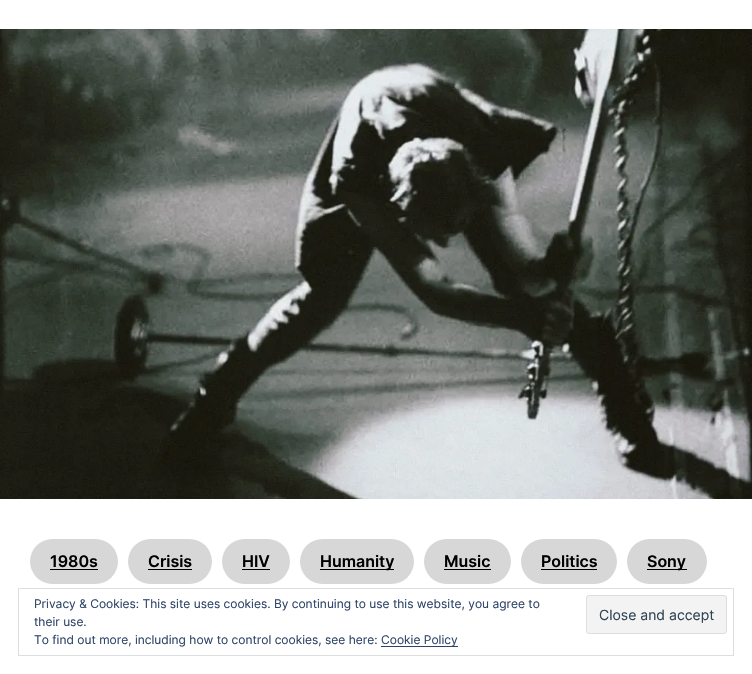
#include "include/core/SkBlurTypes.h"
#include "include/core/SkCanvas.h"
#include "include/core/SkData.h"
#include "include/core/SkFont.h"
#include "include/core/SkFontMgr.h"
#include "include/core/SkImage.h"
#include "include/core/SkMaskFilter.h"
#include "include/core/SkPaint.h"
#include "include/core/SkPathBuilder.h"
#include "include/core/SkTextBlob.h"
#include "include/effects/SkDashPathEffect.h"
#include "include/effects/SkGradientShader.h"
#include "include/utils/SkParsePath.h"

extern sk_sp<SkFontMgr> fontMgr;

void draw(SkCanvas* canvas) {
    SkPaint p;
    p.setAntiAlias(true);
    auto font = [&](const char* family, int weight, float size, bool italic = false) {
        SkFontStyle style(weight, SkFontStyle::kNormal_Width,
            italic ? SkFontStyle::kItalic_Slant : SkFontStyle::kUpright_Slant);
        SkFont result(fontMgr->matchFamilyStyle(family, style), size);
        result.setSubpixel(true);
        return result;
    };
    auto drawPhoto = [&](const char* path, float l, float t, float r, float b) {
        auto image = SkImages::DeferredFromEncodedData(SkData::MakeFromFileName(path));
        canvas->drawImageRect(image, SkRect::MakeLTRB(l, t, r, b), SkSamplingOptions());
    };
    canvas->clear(0xFFFFFFFF);
    drawPhoto("media/1.png", 0, 29, 752, 499);
    p.setColor(0xFFD7D7D7);
    canvas->drawRoundRect(SkRect::MakeLTRB(30, 539, 118, 584), 22.5f, 22.5f, p);
    auto font1 = font("Inter", 600, 16);
    p.setColor(0xFF000000);
    canvas->drawString("1980s", 50, 567, font1, p);
    canvas->drawRect(SkRect::MakeLTRB(50, 569, 98, 570), p);
    p.setColor(0xFFD7D7D7);
    canvas->drawRoundRect(SkRect::MakeLTRB(128, 539, 212, 584), 22.5f, 22.5f, p);
    p.setColor(0xFF000000);
    canvas->drawString("Crisis", 148, 567, font1, p);
    canvas->drawRect(SkRect::MakeLTRB(148, 569, 192, 570), p);
    p.setColor(0xFFD7D7D7);
    canvas->drawRoundRect(SkRect::MakeLTRB(222, 539, 290, 584), 22.5f, 22.5f, p);
    p.setColor(0xFF000000);
    canvas->drawString("HIV", 242, 567, font1, p);
    canvas->drawRect(SkRect::MakeLTRB(242, 569, 270, 570), p);
    p.setColor(0xFFD7D7D7);
    canvas->drawRoundRect(SkRect::MakeLTRB(300, 539, 414, 584), 22.5f, 22.5f, p);
    p.setColor(0xFF000000);
    canvas->drawRect(SkRect::MakeLTRB(320, 569, 394, 570), p);
    canvas->drawString("Humanity", 320, 567, font1, p);
    p.setColor(0xFFD7D7D7);
    canvas->drawRoundRect(SkRect::MakeLTRB(424, 539, 511, 584), 22.5f, 22.5f, p);
    p.setColor(0xFF000000);
    canvas->drawString("Music", 444, 567, font1, p);
    canvas->drawRect(SkRect::MakeLTRB(444, 569, 491, 570), p);
    p.setColor(0xFFD7D7D7);
    canvas->drawRoundRect(SkRect::MakeLTRB(521, 539, 617, 584), 22.5f, 22.5f, p);
    p.setColor(0xFF000000);
    canvas->drawString("Politics", 541, 567, font1, p);
    canvas->drawRect(SkRect::MakeLTRB(541, 569, 597, 570), p);
    p.setColor(0xFFD7D7D7);
    canvas->drawRoundRect(SkRect::MakeLTRB(627, 539, 707, 584), 22.5f, 22.5f, p);
    p.setColor(0xFF000000);
    canvas->drawRect(SkRect::MakeLTRB(647, 569, 687, 570), p);
    canvas->drawString("Sony", 647, 567, font1, p);
    p.setStyle(SkPaint::kStroke_Style);
    p.setStrokeWidth(1);
    p.setColor(0xFFDEDEDE);
    canvas->drawRect(SkRect::MakeLTRB(18.5f, 588.5f, 733.5f, 655.5f), p);
    auto font2 = font("Inter", 400, 12);
    p.setStyle(SkPaint::kFill_Style);
    p.setColor(0xFF2E4467);
    canvas->drawString("Privacy & Cookies: This site uses cookies. By continuing to use this website, you agree to", 34, 608, font2, p);
    canvas->drawString("their use.", 34, 626, font2, p);
    p.setColor(0xFFF3F3F3);
    canvas->drawRoundRect(SkRect::MakeLTRB(586.5f, 595.5f, 726.5f, 633.5f), 2.5f, 2.5f, p);
    p.setStyle(SkPaint::kStroke_Style);
    p.setColor(0xFFDEDEDE);
    canvas->drawRoundRect(SkRect::MakeLTRB(586.5f, 595.5f, 726.5f, 633.5f), 2.5f, 2.5f, p);
    auto font3 = font("Inter", 400, 14);
    p.setStyle(SkPaint::kFill_Style);
    p.setColor(0xFF2E4453);
    canvas->drawString("Close and accept", 599, 620, font3, p);
    p.setColor(0xFF2E4467);
    canvas->drawString("To find out more, including how to control cookies, see here:", 34, 644, font2, p);
    canvas->drawRect(SkRect::MakeLTRB(381, 646, 458, 647), p);
    canvas->drawString("Cookie Policy", 381, 644, font2, p);
}
